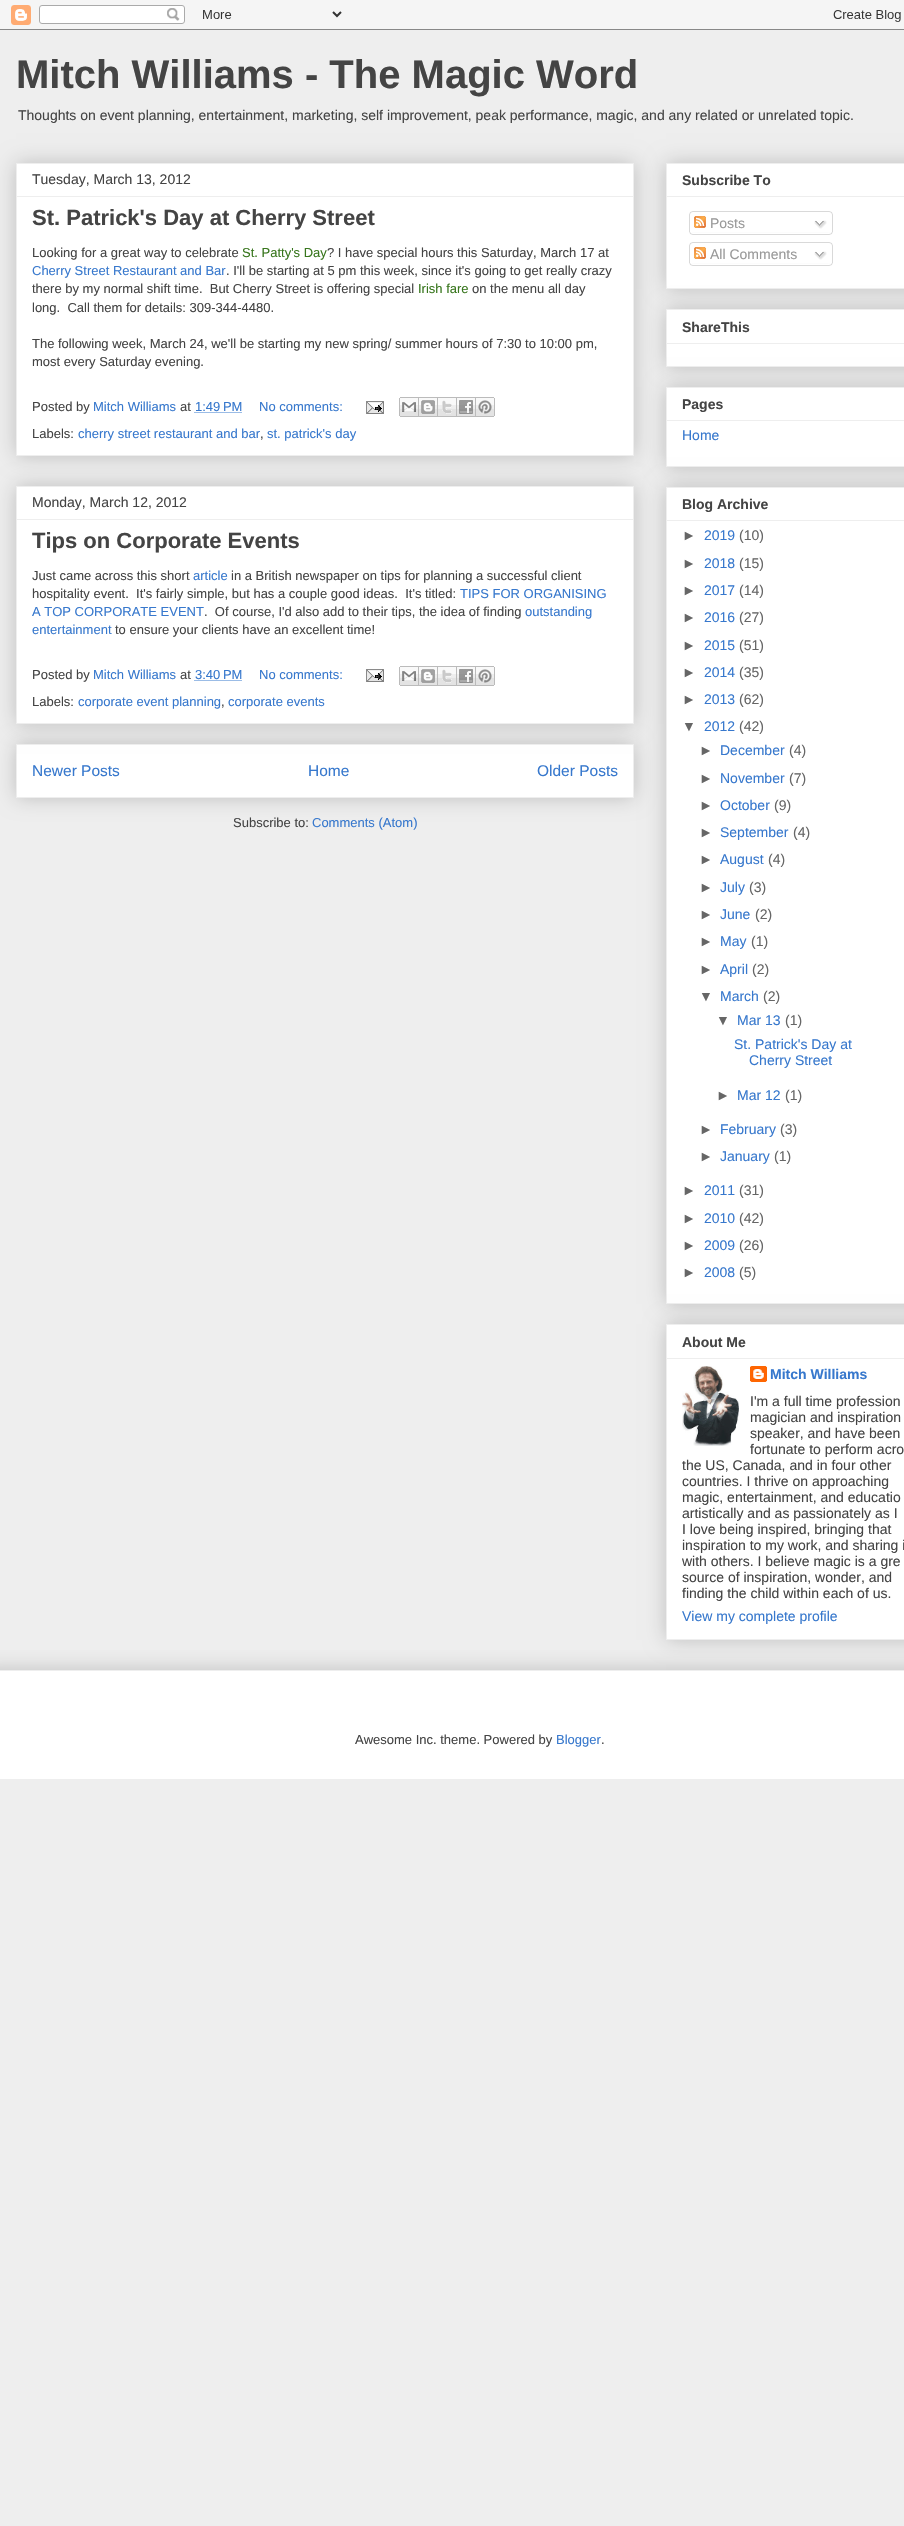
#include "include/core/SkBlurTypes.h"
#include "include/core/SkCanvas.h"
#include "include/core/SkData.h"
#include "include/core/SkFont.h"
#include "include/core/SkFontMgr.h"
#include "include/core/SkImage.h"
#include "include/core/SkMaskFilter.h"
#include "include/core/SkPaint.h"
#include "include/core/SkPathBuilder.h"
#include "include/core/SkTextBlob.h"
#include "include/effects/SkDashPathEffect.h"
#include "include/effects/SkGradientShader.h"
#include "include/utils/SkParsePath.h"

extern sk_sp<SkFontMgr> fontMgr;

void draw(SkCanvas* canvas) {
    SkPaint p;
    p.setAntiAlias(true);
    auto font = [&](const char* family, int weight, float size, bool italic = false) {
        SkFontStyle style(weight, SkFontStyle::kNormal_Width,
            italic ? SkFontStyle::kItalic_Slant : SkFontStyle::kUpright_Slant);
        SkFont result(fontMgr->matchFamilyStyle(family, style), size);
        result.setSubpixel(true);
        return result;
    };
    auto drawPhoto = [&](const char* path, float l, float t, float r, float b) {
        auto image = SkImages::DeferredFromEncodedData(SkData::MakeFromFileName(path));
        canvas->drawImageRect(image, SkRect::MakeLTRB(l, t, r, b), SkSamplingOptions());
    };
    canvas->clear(0xFFEEEEEE);
    drawPhoto("media/1.png", 0, 0, 904, 30);
    auto font1 = font("Liberation Sans", 700, 40);
    p.setColor(0xFF444444);
    canvas->drawString("Mitch Williams - The Magic Word", 16, 88, font1, p);
    auto font2 = font("Liberation Sans", 400, 14);
    canvas->drawString("Thoughts on event planning, entertainment, marketing, self improvement, peak performance, magic, and any related or unrelated topic.", 18, 120, font2, p);
    p.setColor(0x33000000);
    p.setMaskFilter(SkMaskFilter::MakeBlur(kNormal_SkBlurStyle, 10));
    canvas->drawRect(SkRect::MakeLTRB(16, 163, 634, 456), p);
    p.setMaskFilter(nullptr);
    p.setColor(0xFFFFFFFF);
    canvas->drawRect(SkRect::MakeLTRB(16.5f, 163.5f, 633.5f, 455.5f), p);
    p.setStyle(SkPaint::kStroke_Style);
    p.setStrokeWidth(1);
    p.setColor(0xFFEEEEEE);
    canvas->drawRect(SkRect::MakeLTRB(16.5f, 163.5f, 633.5f, 455.5f), p);
    p.setStyle(SkPaint::kFill_Style);
    p.setColor(0xFF444444);
    canvas->drawString("Tuesday, March 13, 2012", 32, 184, font2, p);
    p.setColor(0xFFEEEEEE);
    canvas->drawRect(SkRect::MakeLTRB(17, 196, 633, 197), p);
    auto font3 = font("Liberation Sans", 700, 22);
    p.setColor(0xFF444444);
    canvas->drawString("St. Patrick's Day at Cherry Street", 32, 225, font3, p);
    auto font4 = font("Liberation Sans", 400, 13);
    canvas->drawString("Looking for a great way to celebrate", 32, 257, font4, p);
    p.setColor(0xFF38761D);
    canvas->drawString("St. Patty's Day", 242, 257, font4, p);
    p.setColor(0xFF444444);
    canvas->drawString("? I have special hours this Saturday, March 17 at", 327, 257, font4, p);
    p.setColor(0xFF3778CD);
    canvas->drawString("Cherry Street Restaurant and Bar", 32, 275, font4, p);
    p.setColor(0xFF444444);
    canvas->drawString(". I'll be starting at 5 pm this week, since it's going to get really crazy", 226, 275, font4, p);
    canvas->drawString("there by my normal shift time.  But Cherry Street is offering special", 32, 293, font4, p);
    p.setColor(0xFF38761D);
    canvas->drawString("Irish fare", 418, 293, font4, p);
    p.setColor(0xFF444444);
    {
        const struct { const char* s; float x, y; } items[] = {
            {"on the menu all day", 472, 293},
            {"long.  Call them for details: 309-344-4480.", 32, 312},
            {"The following week, March 24, we'll be starting my new spring/ summer hours of 7:30 to 10:00 pm,", 32, 348},
            {"most every Saturday evening.", 32, 366},
            {"Posted by", 32, 411},
        };
        for (auto [s, x, y] : items) {
            canvas->drawString(s, x, y, font4, p);
        }
    }
    p.setColor(0xFF3778CD);
    canvas->drawString("Mitch Williams", 93, 411, font4, p);
    p.setColor(0xFF444444);
    canvas->drawString("at", 180, 411, font4, p);
    p.setColor(0xFF3778CD);
    canvas->drawString("1:49 PM", 195, 411, font4, p);
    p.setStyle(SkPaint::kStroke_Style);
    p.setPathEffect(SkDashPathEffect::Make({{1, 1}}, 0));
    canvas->drawPath(SkPathBuilder().moveTo(194.5f, 412.5f).lineTo(242, 412.5f).detach(), p);
    p.setPathEffect(nullptr);
    p.setStyle(SkPaint::kFill_Style);
    canvas->drawString("No comments:", 259, 411, font4, p);
    drawPhoto("media/2.png", 366, 401, 384, 414);
    drawPhoto("media/3.png", 399, 397, 419, 417);
    drawPhoto("media/4.png", 419, 397, 438, 417);
    drawPhoto("media/5.png", 438, 397, 457, 417);
    drawPhoto("media/6.png", 457, 397, 476, 417);
    drawPhoto("media/7.png", 476, 397, 495, 417);
    p.setColor(0xFF444444);
    canvas->drawString("Labels:", 32, 438, font4, p);
    p.setColor(0xFF3778CD);
    canvas->drawString("cherry street restaurant and bar", 78, 438, font4, p);
    p.setColor(0xFF444444);
    canvas->drawString(",", 260, 438, font4, p);
    p.setColor(0xFF3778CD);
    canvas->drawString("st. patrick's day", 267, 438, font4, p);
    p.setColor(0x33000000);
    p.setMaskFilter(SkMaskFilter::MakeBlur(kNormal_SkBlurStyle, 10));
    canvas->drawRect(SkRect::MakeLTRB(16, 744, 634, 798), p);
    p.setMaskFilter(nullptr);
    p.setColor(0xFFFFFFFF);
    canvas->drawRect(SkRect::MakeLTRB(16.5f, 744.5f, 633.5f, 797.5f), p);
    p.setStyle(SkPaint::kStroke_Style);
    p.setColor(0xFFEEEEEE);
    canvas->drawRect(SkRect::MakeLTRB(16.5f, 744.5f, 633.5f, 797.5f), p);
    p.setStyle(SkPaint::kFill_Style);
    p.setColor(0x33000000);
    p.setMaskFilter(SkMaskFilter::MakeBlur(kNormal_SkBlurStyle, 10));
    canvas->drawRect(SkRect::MakeLTRB(16, 486, 634, 724), p);
    p.setMaskFilter(nullptr);
    p.setColor(0xFFFFFFFF);
    canvas->drawRect(SkRect::MakeLTRB(16.5f, 486.5f, 633.5f, 723.5f), p);
    p.setStyle(SkPaint::kStroke_Style);
    p.setColor(0xFFEEEEEE);
    canvas->drawRect(SkRect::MakeLTRB(16.5f, 486.5f, 633.5f, 723.5f), p);
    p.setStyle(SkPaint::kFill_Style);
    p.setColor(0xFF444444);
    canvas->drawString("Monday, March 12, 2012", 32, 507, font2, p);
    p.setColor(0xFFEEEEEE);
    canvas->drawRect(SkRect::MakeLTRB(17, 519, 633, 520), p);
    p.setColor(0xFF444444);
    canvas->drawString("Tips on Corporate Events", 32, 548, font3, p);
    canvas->drawString("Just came across this short", 32, 580, font4, p);
    p.setColor(0xFF3778CD);
    canvas->drawString("article", 193, 580, font4, p);
    p.setColor(0xFF444444);
    canvas->drawString("in a British newspaper on tips for planning a successful client", 231, 580, font4, p);
    canvas->drawString("hospitality event.  It's fairly simple, but has a couple good ideas.  It's titled:", 32, 598, font4, p);
    p.setColor(0xFF3778CD);
    canvas->drawString("TIPS FOR ORGANISING", 460, 598, font4, p);
    canvas->drawString("A TOP CORPORATE EVENT", 32, 616, font4, p);
    p.setColor(0xFF444444);
    canvas->drawString(".  Of course, I'd also add to their tips, the idea of finding", 204, 616, font4, p);
    p.setColor(0xFF3778CD);
    canvas->drawString("outstanding", 525, 616, font4, p);
    canvas->drawString("entertainment", 32, 634, font4, p);
    p.setColor(0xFF444444);
    canvas->drawString("to ensure your clients have an excellent time!", 115, 634, font4, p);
    canvas->drawString("Posted by", 32, 679, font4, p);
    p.setColor(0xFF3778CD);
    canvas->drawString("Mitch Williams", 93, 679, font4, p);
    p.setColor(0xFF444444);
    canvas->drawString("at", 180, 679, font4, p);
    p.setColor(0xFF3778CD);
    canvas->drawString("3:40 PM", 195, 679, font4, p);
    p.setStyle(SkPaint::kStroke_Style);
    p.setPathEffect(SkDashPathEffect::Make({{1, 1}}, 0));
    canvas->drawPath(SkPathBuilder().moveTo(194.5f, 680.5f).lineTo(242, 680.5f).detach(), p);
    p.setPathEffect(nullptr);
    p.setStyle(SkPaint::kFill_Style);
    canvas->drawString("No comments:", 259, 679, font4, p);
    drawPhoto("media/2.png", 366, 669, 384, 682);
    drawPhoto("media/3.png", 399, 666, 419, 686);
    drawPhoto("media/4.png", 419, 666, 438, 686);
    drawPhoto("media/5.png", 438, 666, 457, 686);
    drawPhoto("media/6.png", 457, 666, 476, 686);
    drawPhoto("media/7.png", 476, 666, 495, 686);
    p.setColor(0xFF444444);
    canvas->drawString("Labels:", 32, 706, font4, p);
    p.setColor(0xFF3778CD);
    canvas->drawString("corporate event planning", 78, 706, font4, p);
    p.setColor(0xFF444444);
    canvas->drawString(",", 221, 706, font4, p);
    p.setColor(0xFF3778CD);
    canvas->drawString("corporate events", 228, 706, font4, p);
    auto font5 = font("Liberation Sans", 400, 15.5f);
    {
        const struct { const char* s; float x, y; } items[] = {
            {"Newer Posts", 32, 776},
            {"Home", 308, 776},
            {"Older Posts", 537, 776},
        };
        for (auto [s, x, y] : items) {
            canvas->drawString(s, x, y, font5, p);
        }
    }
    p.setColor(0xFF444444);
    canvas->drawString("Subscribe to:", 233, 827, font4, p);
    p.setColor(0xFF3778CD);
    canvas->drawString("Comments (Atom)", 312, 827, font4, p);
    p.setColor(0x33000000);
    p.setMaskFilter(SkMaskFilter::MakeBlur(kNormal_SkBlurStyle, 10));
    canvas->drawRect(SkRect::MakeLTRB(666, 163, 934, 289), p);
    p.setMaskFilter(nullptr);
    p.setColor(0xFFFFFFFF);
    canvas->drawRect(SkRect::MakeLTRB(666.5f, 163.5f, 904.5f, 288.5f), p);
    p.setStyle(SkPaint::kStroke_Style);
    p.setColor(0xFFEEEEEE);
    canvas->drawRect(SkRect::MakeLTRB(666.5f, 163.5f, 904.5f, 288.5f), p);
    auto font6 = font("Liberation Sans", 700, 14);
    p.setStyle(SkPaint::kFill_Style);
    p.setColor(0xFF444444);
    canvas->drawString("Subscribe To", 682, 185, font6, p);
    p.setColor(0xFFEEEEEE);
    canvas->drawRect(SkRect::MakeLTRB(667, 196, 904, 197), p);
    drawPhoto("media/8.png", 689, 211, 833, 232);
    drawPhoto("media/9.png", 694, 216, 706, 228);
    p.setColor(0xFF999999);
    canvas->drawString("Posts", 710, 228, font2, p);
    drawPhoto("media/10.png", 814, 220, 827, 229);
    drawPhoto("media/11.png", 689, 232, 833, 235);
    drawPhoto("media/8.png", 689, 242, 833, 263);
    drawPhoto("media/9.png", 694, 247, 706, 259);
    canvas->drawString("All Comments", 710, 259, font2, p);
    drawPhoto("media/10.png", 814, 251, 827, 260);
    drawPhoto("media/11.png", 689, 263, 833, 266);
    p.setColor(0x33000000);
    p.setMaskFilter(SkMaskFilter::MakeBlur(kNormal_SkBlurStyle, 10));
    canvas->drawRect(SkRect::MakeLTRB(666, 309, 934, 367), p);
    p.setMaskFilter(nullptr);
    p.setColor(0xFFFFFFFF);
    canvas->drawRect(SkRect::MakeLTRB(666.5f, 309.5f, 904.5f, 366.5f), p);
    p.setStyle(SkPaint::kStroke_Style);
    p.setColor(0xFFEEEEEE);
    canvas->drawRect(SkRect::MakeLTRB(666.5f, 309.5f, 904.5f, 366.5f), p);
    p.setStyle(SkPaint::kFill_Style);
    p.setColor(0xFF444444);
    canvas->drawString("ShareThis", 682, 332, font6, p);
    p.setColor(0xFFEEEEEE);
    canvas->drawRect(SkRect::MakeLTRB(667, 343, 904, 344), p);
    p.setColor(0x33000000);
    p.setMaskFilter(SkMaskFilter::MakeBlur(kNormal_SkBlurStyle, 10));
    canvas->drawRect(SkRect::MakeLTRB(666, 387, 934, 467), p);
    p.setMaskFilter(nullptr);
    p.setColor(0xFFFFFFFF);
    canvas->drawRect(SkRect::MakeLTRB(666.5f, 387.5f, 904.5f, 466.5f), p);
    p.setStyle(SkPaint::kStroke_Style);
    p.setColor(0xFFEEEEEE);
    canvas->drawRect(SkRect::MakeLTRB(666.5f, 387.5f, 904.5f, 466.5f), p);
    p.setStyle(SkPaint::kFill_Style);
    p.setColor(0xFF444444);
    canvas->drawString("Pages", 682, 409, font6, p);
    p.setColor(0xFFEEEEEE);
    canvas->drawRect(SkRect::MakeLTRB(667, 420, 904, 421), p);
    p.setColor(0xFF3778CD);
    canvas->drawString("Home", 682, 440, font2, p);
    p.setColor(0x33000000);
    p.setMaskFilter(SkMaskFilter::MakeBlur(kNormal_SkBlurStyle, 10));
    canvas->drawRect(SkRect::MakeLTRB(666, 487, 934, 1304), p);
    p.setMaskFilter(nullptr);
    p.setColor(0xFFFFFFFF);
    canvas->drawRect(SkRect::MakeLTRB(666.5f, 487.5f, 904.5f, 1303.5f), p);
    p.setStyle(SkPaint::kStroke_Style);
    p.setColor(0xFFEEEEEE);
    canvas->drawRect(SkRect::MakeLTRB(666.5f, 487.5f, 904.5f, 1303.5f), p);
    p.setStyle(SkPaint::kFill_Style);
    p.setColor(0xFF444444);
    canvas->drawString("Blog Archive", 682, 509, font6, p);
    p.setColor(0xFFEEEEEE);
    canvas->drawRect(SkRect::MakeLTRB(667, 520, 904, 521), p);
    p.setColor(0xFF666666);
    canvas->drawString("►", 682, 540, font2, p);
    p.setColor(0xFF3778CD);
    canvas->drawString("2019", 704, 540, font2, p);
    p.setColor(0xFF666666);
    canvas->drawString("(10)", 739, 540, font2, p);
    canvas->drawString("►", 682, 568, font2, p);
    p.setColor(0xFF3778CD);
    canvas->drawString("2018", 704, 568, font2, p);
    p.setColor(0xFF666666);
    canvas->drawString("(15)", 739, 568, font2, p);
    canvas->drawString("►", 682, 595, font2, p);
    p.setColor(0xFF3778CD);
    canvas->drawString("2017", 704, 595, font2, p);
    p.setColor(0xFF666666);
    canvas->drawString("(14)", 739, 595, font2, p);
    canvas->drawString("►", 682, 622, font2, p);
    p.setColor(0xFF3778CD);
    canvas->drawString("2016", 704, 622, font2, p);
    p.setColor(0xFF666666);
    canvas->drawString("(27)", 739, 622, font2, p);
    canvas->drawString("►", 682, 650, font2, p);
    p.setColor(0xFF3778CD);
    canvas->drawString("2015", 704, 650, font2, p);
    p.setColor(0xFF666666);
    canvas->drawString("(51)", 739, 650, font2, p);
    canvas->drawString("►", 682, 677, font2, p);
    p.setColor(0xFF3778CD);
    canvas->drawString("2014", 704, 677, font2, p);
    p.setColor(0xFF666666);
    canvas->drawString("(35)", 739, 677, font2, p);
    canvas->drawString("►", 682, 704, font2, p);
    p.setColor(0xFF3778CD);
    canvas->drawString("2013", 704, 704, font2, p);
    p.setColor(0xFF666666);
    canvas->drawString("(62)", 739, 704, font2, p);
    canvas->drawString("▼", 682, 731, font2, p);
    p.setColor(0xFF3778CD);
    canvas->drawString("2012", 704, 731, font2, p);
    p.setColor(0xFF666666);
    canvas->drawString("(42)", 739, 731, font2, p);
    canvas->drawString("►", 699, 755, font2, p);
    p.setColor(0xFF3778CD);
    canvas->drawString("December", 720, 755, font2, p);
    p.setColor(0xFF666666);
    canvas->drawString("(4)", 789, 755, font2, p);
    canvas->drawString("►", 699, 783, font2, p);
    p.setColor(0xFF3778CD);
    canvas->drawString("November", 720, 783, font2, p);
    p.setColor(0xFF666666);
    canvas->drawString("(7)", 789, 783, font2, p);
    canvas->drawString("►", 699, 810, font2, p);
    p.setColor(0xFF3778CD);
    canvas->drawString("October", 720, 810, font2, p);
    p.setColor(0xFF666666);
    canvas->drawString("(9)", 774, 810, font2, p);
    canvas->drawString("►", 699, 837, font2, p);
    p.setColor(0xFF3778CD);
    canvas->drawString("September", 720, 837, font2, p);
    p.setColor(0xFF666666);
    canvas->drawString("(4)", 793, 837, font2, p);
    canvas->drawString("►", 699, 864, font2, p);
    p.setColor(0xFF3778CD);
    canvas->drawString("August", 720, 864, font2, p);
    p.setColor(0xFF666666);
    canvas->drawString("(4)", 768, 864, font2, p);
    canvas->drawString("►", 699, 892, font2, p);
    p.setColor(0xFF3778CD);
    canvas->drawString("July", 720, 892, font2, p);
    p.setColor(0xFF666666);
    canvas->drawString("(3)", 749, 892, font2, p);
    canvas->drawString("►", 699, 919, font2, p);
    p.setColor(0xFF3778CD);
    canvas->drawString("June", 720, 919, font2, p);
    p.setColor(0xFF666666);
    canvas->drawString("(2)", 755, 919, font2, p);
    canvas->drawString("►", 699, 946, font2, p);
    p.setColor(0xFF3778CD);
    canvas->drawString("May", 720, 946, font2, p);
    p.setColor(0xFF666666);
    canvas->drawString("(1)", 751, 946, font2, p);
    canvas->drawString("►", 699, 974, font2, p);
    p.setColor(0xFF3778CD);
    canvas->drawString("April", 720, 974, font2, p);
    p.setColor(0xFF666666);
    canvas->drawString("(2)", 752, 974, font2, p);
    canvas->drawString("▼", 699, 1001, font2, p);
    p.setColor(0xFF3778CD);
    canvas->drawString("March", 720, 1001, font2, p);
    p.setColor(0xFF666666);
    canvas->drawString("(2)", 763, 1001, font2, p);
    canvas->drawString("▼", 716, 1025, font2, p);
    p.setColor(0xFF3778CD);
    canvas->drawString("Mar 13", 737, 1025, font2, p);
    p.setColor(0xFF666666);
    canvas->drawString("(1)", 785, 1025, font2, p);
    p.setColor(0xFF3778CD);
    canvas->drawString("St. Patrick's Day at", 734, 1049, font2, p);
    canvas->drawString("Cherry Street", 749, 1065, font2, p);
    p.setColor(0xFF666666);
    canvas->drawString("►", 716, 1100, font2, p);
    p.setColor(0xFF3778CD);
    canvas->drawString("Mar 12", 737, 1100, font2, p);
    p.setColor(0xFF666666);
    canvas->drawString("(1)", 785, 1100, font2, p);
    canvas->drawString("►", 699, 1134, font2, p);
    p.setColor(0xFF3778CD);
    canvas->drawString("February", 720, 1134, font2, p);
    p.setColor(0xFF666666);
    canvas->drawString("(3)", 780, 1134, font2, p);
    canvas->drawString("►", 699, 1161, font2, p);
    p.setColor(0xFF3778CD);
    canvas->drawString("January", 720, 1161, font2, p);
    p.setColor(0xFF666666);
    canvas->drawString("(1)", 774, 1161, font2, p);
    canvas->drawString("►", 682, 1195, font2, p);
    p.setColor(0xFF3778CD);
    canvas->drawString("2011", 704, 1195, font2, p);
    p.setColor(0xFF666666);
    canvas->drawString("(31)", 739, 1195, font2, p);
    canvas->drawString("►", 682, 1223, font2, p);
    p.setColor(0xFF3778CD);
    canvas->drawString("2010", 704, 1223, font2, p);
    p.setColor(0xFF666666);
    canvas->drawString("(42)", 739, 1223, font2, p);
    canvas->drawString("►", 682, 1250, font2, p);
    p.setColor(0xFF3778CD);
    canvas->drawString("2009", 704, 1250, font2, p);
    p.setColor(0xFF666666);
    canvas->drawString("(26)", 739, 1250, font2, p);
    canvas->drawString("►", 682, 1277, font2, p);
    p.setColor(0xFF3778CD);
    canvas->drawString("2008", 704, 1277, font2, p);
    p.setColor(0xFF666666);
    canvas->drawString("(5)", 739, 1277, font2, p);
    p.setColor(0x33000000);
    p.setMaskFilter(SkMaskFilter::MakeBlur(kNormal_SkBlurStyle, 10));
    canvas->drawRect(SkRect::MakeLTRB(666, 1324, 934, 1640), p);
    p.setMaskFilter(nullptr);
    p.setColor(0xFFFFFFFF);
    canvas->drawRect(SkRect::MakeLTRB(666.5f, 1324.5f, 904.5f, 1639.5f), p);
    p.setStyle(SkPaint::kStroke_Style);
    p.setColor(0xFFEEEEEE);
    canvas->drawRect(SkRect::MakeLTRB(666.5f, 1324.5f, 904.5f, 1639.5f), p);
    p.setStyle(SkPaint::kFill_Style);
    p.setColor(0xFF444444);
    canvas->drawString("About Me", 682, 1347, font6, p);
    p.setColor(0xFFEEEEEE);
    canvas->drawRect(SkRect::MakeLTRB(667, 1358, 904, 1359), p);
    drawPhoto("media/12.png", 682, 1366, 739, 1446);
    drawPhoto("media/13.png", 750, 1366, 767, 1382);
    p.setColor(0xFF3778CD);
    canvas->drawString("Mitch Williams", 770, 1379, font6, p);
    p.setColor(0xFF444444);
    {
        const struct { const char* s; float x, y; } items[] = {
            {"I'm a full time profession", 750, 1406},
            {"magician and inspiration", 750, 1422},
            {"speaker, and have been", 750, 1438},
            {"fortunate to perform acro", 750, 1454},
            {"the US, Canada, and in four other", 682, 1470},
            {"countries. I thrive on approaching", 682, 1486},
            {"magic, entertainment, and educatio", 682, 1502},
            {"artistically and as passionately as I", 682, 1518},
            {"I love being inspired, bringing that", 682, 1534},
            {"inspiration to my work, and sharing i", 682, 1550},
            {"with others. I believe magic is a gre", 682, 1566},
            {"source of inspiration, wonder, and", 682, 1582},
            {"finding the child within each of us.", 682, 1598},
        };
        for (auto [s, x, y] : items) {
            canvas->drawString(s, x, y, font2, p);
        }
    }
    p.setColor(0xFF3778CD);
    canvas->drawString("View my complete profile", 682, 1621, font2, p);
    canvas->save();
    canvas->clipRect(SkRect::MakeLTRB(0, 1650, 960, 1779));
    p.setColor(0x33000000);
    p.setMaskFilter(SkMaskFilter::MakeBlur(kNormal_SkBlurStyle, 10));
    canvas->drawRect(SkRect::MakeLTRB(-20, 1670, 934, 1779), p);
    p.setMaskFilter(nullptr);
    canvas->restore();
    p.setColor(0xFFFFFFFF);
    canvas->drawRect(SkRect::MakeLTRB(0, 1671, 904, 1779), p);
    p.setColor(0xFFEEEEEE);
    canvas->drawRect(SkRect::MakeLTRB(0, 1670, 904, 1671), p);
    p.setColor(0xFF444444);
    canvas->drawString("Awesome Inc. theme. Powered by", 355, 1744, font4, p);
    p.setColor(0xFF3778CD);
    canvas->drawString("Blogger", 556, 1744, font4, p);
    p.setColor(0xFF444444);
    canvas->drawString(".", 601, 1744, font4, p);
}
